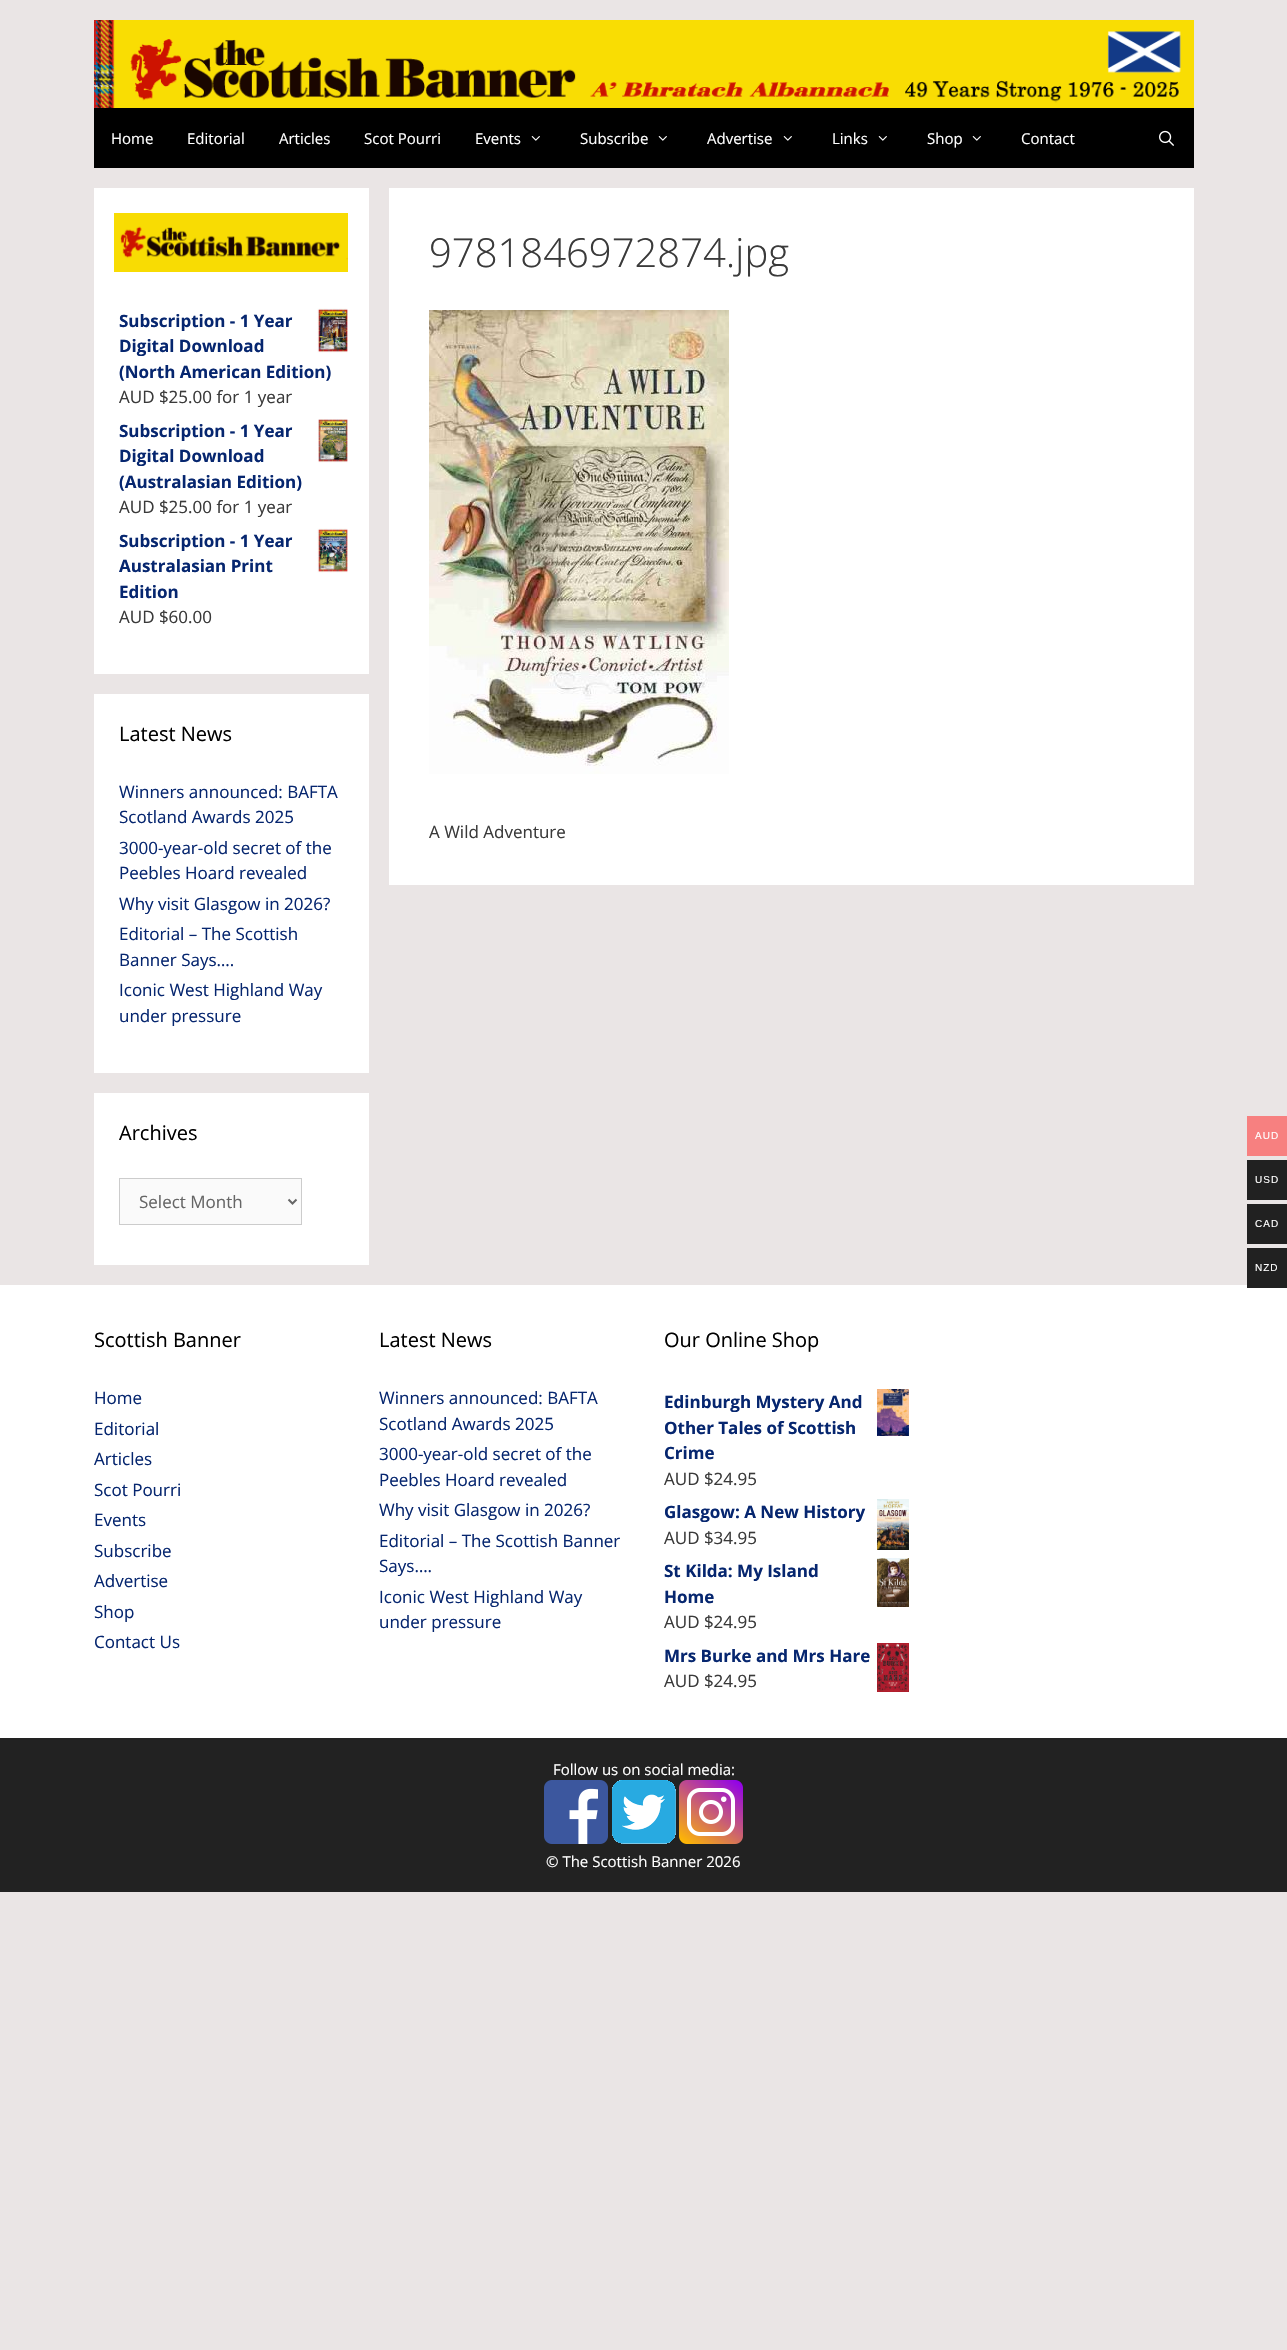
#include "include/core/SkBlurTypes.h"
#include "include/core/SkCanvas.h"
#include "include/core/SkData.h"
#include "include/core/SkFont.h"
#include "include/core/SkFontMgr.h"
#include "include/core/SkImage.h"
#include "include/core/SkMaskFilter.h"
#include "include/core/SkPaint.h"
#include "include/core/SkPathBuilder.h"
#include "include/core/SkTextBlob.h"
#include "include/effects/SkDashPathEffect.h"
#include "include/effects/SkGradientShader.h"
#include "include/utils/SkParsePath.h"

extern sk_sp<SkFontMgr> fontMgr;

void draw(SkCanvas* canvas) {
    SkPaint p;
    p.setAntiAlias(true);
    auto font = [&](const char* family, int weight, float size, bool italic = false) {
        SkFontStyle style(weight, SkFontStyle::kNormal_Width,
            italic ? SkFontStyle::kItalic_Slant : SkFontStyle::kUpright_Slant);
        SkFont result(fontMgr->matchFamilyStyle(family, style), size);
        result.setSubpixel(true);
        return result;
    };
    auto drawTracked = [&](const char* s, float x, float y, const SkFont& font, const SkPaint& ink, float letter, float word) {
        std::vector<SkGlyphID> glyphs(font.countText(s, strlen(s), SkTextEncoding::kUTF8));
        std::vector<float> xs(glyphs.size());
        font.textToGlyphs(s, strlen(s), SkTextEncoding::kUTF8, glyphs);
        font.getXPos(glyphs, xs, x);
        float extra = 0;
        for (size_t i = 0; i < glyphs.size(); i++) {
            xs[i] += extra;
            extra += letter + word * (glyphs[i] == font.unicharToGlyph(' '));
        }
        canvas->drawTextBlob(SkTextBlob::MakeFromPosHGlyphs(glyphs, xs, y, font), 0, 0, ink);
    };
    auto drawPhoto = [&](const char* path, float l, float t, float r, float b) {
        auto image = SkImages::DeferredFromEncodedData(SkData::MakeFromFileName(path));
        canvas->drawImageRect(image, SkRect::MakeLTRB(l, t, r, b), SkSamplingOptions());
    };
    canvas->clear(0xFFEAE5E5);
    drawPhoto("media/1.png", 94, 20, 1194, 108);
    p.setColor(0xFF000000);
    canvas->drawRect(SkRect::MakeLTRB(94, 108, 1194, 168), p);
    auto font1 = font("Open Sans", 400, 15);
    p.setColor(0xFFFFFFFF);
    {
        const struct { const char* s; float x, y; } items[] = {
            {"Home", 111, 144},
            {"Editorial", 187, 144},
            {"Articles", 279, 144},
            {"Scot Pourri", 364, 144},
            {"Events", 475, 144},
        };
        for (auto [s, x, y] : items) {
            canvas->drawString(s, x, y, font1, p);
        }
    }
    drawPhoto("media/2.png", 531, 136, 540, 141);
    canvas->drawString("Subscribe", 580, 144, font1, p);
    drawPhoto("media/2.png", 658, 136, 667, 141);
    canvas->drawString("Advertise", 707, 144, font1, p);
    drawPhoto("media/2.png", 783, 136, 792, 141);
    canvas->drawString("Links", 832, 144, font1, p);
    drawPhoto("media/2.png", 878, 136, 887, 141);
    canvas->drawString("Shop", 927, 144, font1, p);
    drawPhoto("media/2.png", 972, 136, 981, 141);
    canvas->drawString("Contact", 1021, 144, font1, p);
    drawPhoto("media/3.png", 1159, 130, 1174, 146);
    canvas->drawRect(SkRect::MakeLTRB(94, 188, 369, 674), p);
    drawPhoto("media/4.png", 114, 213, 348, 272);
    auto font2 = font("Open Sans", 700, 17);
    p.setColor(0xFF06266F);
    canvas->drawString("Subscription - 1 Year", 119, 327, font2, p);
    drawPhoto("media/5.png", 317, 308, 348, 353);
    canvas->drawString("Digital Download", 119, 352, font2, p);
    canvas->drawString("(North American Edition)", 119, 378, font2, p);
    auto font3 = font("Open Sans", 400, 17);
    p.setColor(0xFF3A3A3A);
    canvas->drawString("AUD $25.00 for 1 year", 119, 403, font3, p);
    p.setColor(0xFF06266F);
    canvas->drawString("Subscription - 1 Year", 119, 437, font2, p);
    drawPhoto("media/6.png", 318, 419, 348, 463);
    canvas->drawString("Digital Download", 119, 462, font2, p);
    canvas->drawString("(Australasian Edition)", 119, 488, font2, p);
    p.setColor(0xFF3A3A3A);
    canvas->drawString("AUD $25.00 for 1 year", 119, 513, font3, p);
    p.setColor(0xFF06266F);
    canvas->drawString("Subscription - 1 Year", 119, 547, font2, p);
    drawPhoto("media/7.png", 317, 528, 348, 573);
    canvas->drawString("Australasian Print", 119, 572, font2, p);
    canvas->drawString("Edition", 119, 598, font2, p);
    p.setColor(0xFF3A3A3A);
    canvas->drawString("AUD $60.00", 119, 623, font3, p);
    p.setColor(0xFFFFFFFF);
    canvas->drawRect(SkRect::MakeLTRB(94, 694, 369, 1073), p);
    auto font4 = font("Open Sans", 400, 20);
    p.setColor(0xFF000000);
    canvas->drawString("Latest News", 119, 741, font4, p);
    p.setColor(0xFF06266F);
    {
        const struct { const char* s; float x, y; } items[] = {
            {"Winners announced: BAFTA", 119, 798},
            {"Scotland Awards 2025", 119, 823},
            {"3000-year-old secret of the", 119, 854},
            {"Peebles Hoard revealed", 119, 879},
            {"Why visit Glasgow in 2026?", 119, 910},
            {"Editorial – The Scottish", 119, 940},
            {"Banner Says….", 119, 966},
            {"Iconic West Highland Way", 119, 996},
            {"under pressure", 119, 1022},
        };
        for (auto [s, x, y] : items) {
            canvas->drawString(s, x, y, font3, p);
        }
    }
    p.setColor(0xFFFFFFFF);
    canvas->drawRect(SkRect::MakeLTRB(94, 1093, 369, 1265), p);
    p.setColor(0xFF000000);
    canvas->drawString("Archives", 119, 1140, font4, p);
    p.setColor(0xFFFAFAFA);
    canvas->drawRect(SkRect::MakeLTRB(119.5f, 1178.5f, 301.5f, 1224.5f), p);
    p.setStyle(SkPaint::kStroke_Style);
    p.setStrokeWidth(1);
    p.setColor(0xFFCCCCCC);
    canvas->drawRect(SkRect::MakeLTRB(119.5f, 1178.5f, 301.5f, 1224.5f), p);
    p.setStrokeWidth(2);
    p.setColor(0xFF666666);
    canvas->drawPath(SkPathBuilder().moveTo(288.5f, 1199.5f).lineTo(292.5f, 1203.5f).lineTo(296.5f, 1199.5f).detach(), p);
    p.setStyle(SkPaint::kFill_Style);
    canvas->drawString("Select Month", 139, 1208, font3, p);
    p.setColor(0xFFFFFFFF);
    canvas->drawRect(SkRect::MakeLTRB(389, 188, 1194, 885), p);
    auto font5 = font("Open Sans", 300, 40);
    p.setColor(0xFF3A3A3A);
    canvas->drawString("9781846972874.jpg", 429, 267, font5, p);
    drawPhoto("media/8.png", 429, 310, 729, 774);
    canvas->drawString("A Wild Adventure", 429, 838, font3, p);
    p.setColor(0xFFF78080);
    canvas->drawRect(SkRect::MakeLTRB(1247, 1116, 1287, 1156), p);
    auto font6 = font("Liberation Sans", 400, 10);
    p.setColor(0xFFFFFFFF);
    drawTracked("AUD", 1255, 1139, font6, p, 1, 0);
    p.setColor(0xFF212121);
    canvas->drawRect(SkRect::MakeLTRB(1247, 1160, 1287, 1200), p);
    p.setColor(0xFFFFFFFF);
    drawTracked("USD", 1255, 1183, font6, p, 1, 0);
    p.setColor(0xFF212121);
    canvas->drawRect(SkRect::MakeLTRB(1247, 1204, 1287, 1244), p);
    p.setColor(0xFFFFFFFF);
    drawTracked("CAD", 1255, 1227, font6, p, 1, 0);
    canvas->drawRect(SkRect::MakeLTRB(0, 1285, 1287, 1738), p);
    p.setColor(0xFF212121);
    canvas->drawRect(SkRect::MakeLTRB(1247, 1248, 1287, 1288), p);
    p.setColor(0xFFFFFFFF);
    drawTracked("NZD", 1255, 1271, font6, p, 1, 0);
    p.setColor(0xFF000000);
    canvas->drawString("Scottish Banner", 94, 1347, font4, p);
    p.setColor(0xFF06266F);
    {
        const struct { const char* s; float x, y; } items[] = {
            {"Home", 94, 1404},
            {"Editorial", 94, 1435},
            {"Articles", 94, 1465},
            {"Scot Pourri", 94, 1496},
            {"Events", 94, 1526},
            {"Subscribe", 94, 1557},
            {"Advertise", 94, 1587},
            {"Shop", 94, 1618},
            {"Contact Us", 94, 1648},
        };
        for (auto [s, x, y] : items) {
            canvas->drawString(s, x, y, font3, p);
        }
    }
    p.setColor(0xFF000000);
    canvas->drawString("Latest News", 379, 1347, font4, p);
    p.setColor(0xFF06266F);
    {
        const struct { const char* s; float x, y; } items[] = {
            {"Winners announced: BAFTA", 379, 1404},
            {"Scotland Awards 2025", 379, 1430},
            {"3000-year-old secret of the", 379, 1460},
            {"Peebles Hoard revealed", 379, 1486},
            {"Why visit Glasgow in 2026?", 379, 1516},
            {"Editorial – The Scottish Banner", 379, 1547},
            {"Says….", 379, 1572},
            {"Iconic West Highland Way", 379, 1603},
            {"under pressure", 379, 1628},
        };
        for (auto [s, x, y] : items) {
            canvas->drawString(s, x, y, font3, p);
        }
    }
    p.setColor(0xFF000000);
    canvas->drawString("Our Online Shop", 664, 1347, font4, p);
    p.setColor(0xFF06266F);
    canvas->drawString("Edinburgh Mystery And", 664, 1408, font2, p);
    drawPhoto("media/9.png", 877, 1389, 909, 1436);
    canvas->drawString("Other Tales of Scottish", 664, 1434, font2, p);
    canvas->drawString("Crime", 664, 1459, font2, p);
    p.setColor(0xFF3A3A3A);
    canvas->drawString("AUD $24.95", 664, 1485, font3, p);
    p.setColor(0xFF06266F);
    canvas->drawString("Glasgow: A New History", 664, 1518, font2, p);
    drawPhoto("media/10.png", 877, 1499, 909, 1550);
    p.setColor(0xFF3A3A3A);
    canvas->drawString("AUD $34.95", 664, 1544, font3, p);
    p.setColor(0xFF06266F);
    canvas->drawString("St Kilda: My Island", 664, 1577, font2, p);
    drawPhoto("media/11.png", 877, 1558, 909, 1607);
    canvas->drawString("Home", 664, 1603, font2, p);
    p.setColor(0xFF3A3A3A);
    canvas->drawString("AUD $24.95", 664, 1628, font3, p);
    p.setColor(0xFF06266F);
    canvas->drawString("Mrs Burke and Mrs Hare", 664, 1662, font2, p);
    drawPhoto("media/12.png", 877, 1643, 909, 1692);
    p.setColor(0xFF3A3A3A);
    canvas->drawString("AUD $24.95", 664, 1687, font3, p);
    p.setColor(0xFF222222);
    canvas->drawRect(SkRect::MakeLTRB(0, 1738, 1287, 1892), p);
    p.setColor(0xFFFFFFFF);
    canvas->drawString("Follow us on social media:", 553, 1775, font1, p);
    drawPhoto("media/13.png", 544, 1780, 608, 1844);
    drawPhoto("media/14.png", 612, 1780, 676, 1844);
    drawPhoto("media/15.png", 679, 1780, 743, 1844);
    canvas->drawString("© The Scottish Banner 2026", 546, 1867, font1, p);
}
